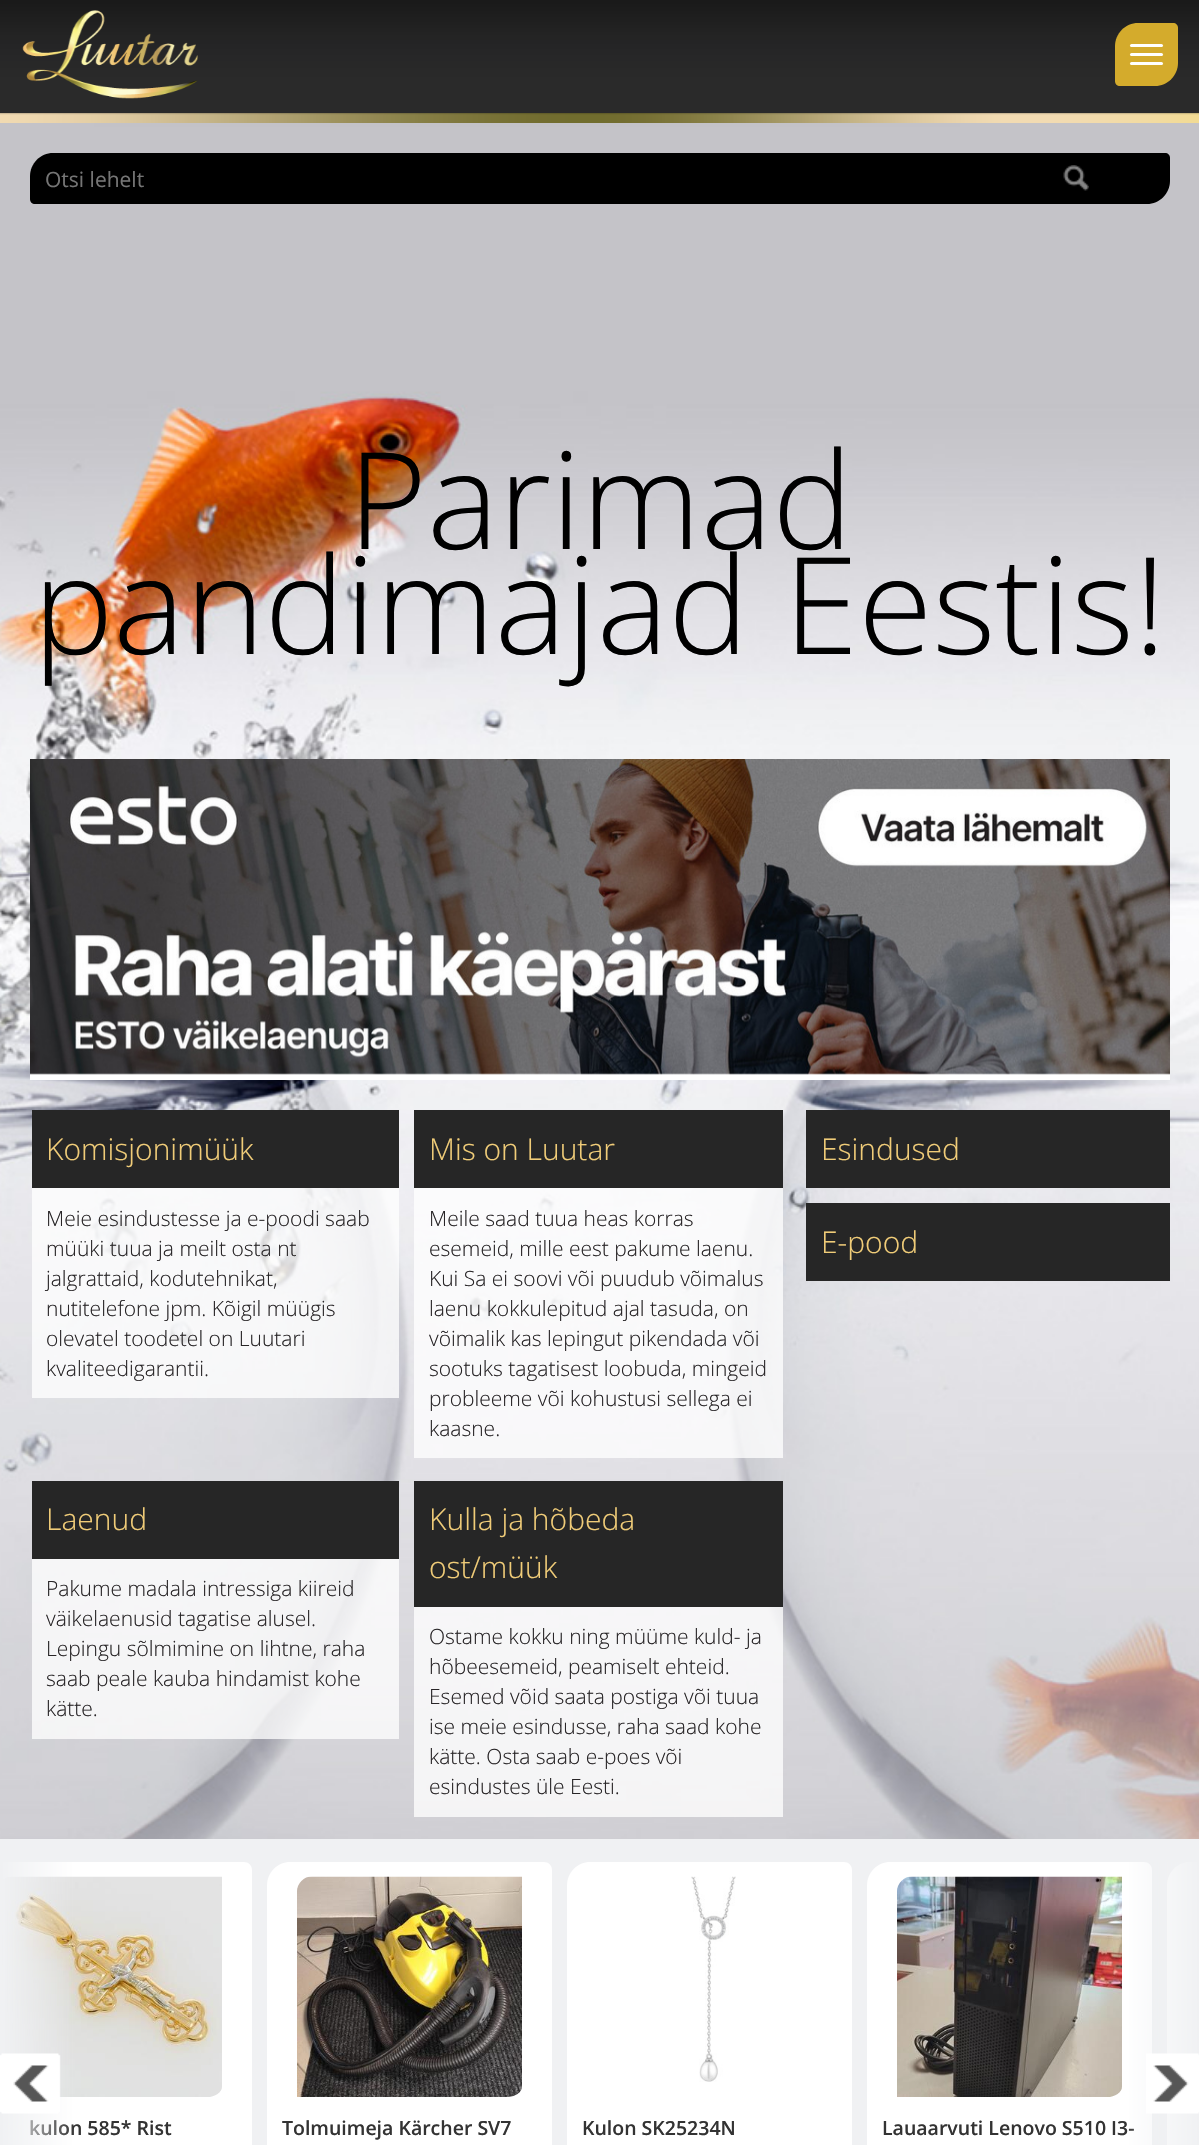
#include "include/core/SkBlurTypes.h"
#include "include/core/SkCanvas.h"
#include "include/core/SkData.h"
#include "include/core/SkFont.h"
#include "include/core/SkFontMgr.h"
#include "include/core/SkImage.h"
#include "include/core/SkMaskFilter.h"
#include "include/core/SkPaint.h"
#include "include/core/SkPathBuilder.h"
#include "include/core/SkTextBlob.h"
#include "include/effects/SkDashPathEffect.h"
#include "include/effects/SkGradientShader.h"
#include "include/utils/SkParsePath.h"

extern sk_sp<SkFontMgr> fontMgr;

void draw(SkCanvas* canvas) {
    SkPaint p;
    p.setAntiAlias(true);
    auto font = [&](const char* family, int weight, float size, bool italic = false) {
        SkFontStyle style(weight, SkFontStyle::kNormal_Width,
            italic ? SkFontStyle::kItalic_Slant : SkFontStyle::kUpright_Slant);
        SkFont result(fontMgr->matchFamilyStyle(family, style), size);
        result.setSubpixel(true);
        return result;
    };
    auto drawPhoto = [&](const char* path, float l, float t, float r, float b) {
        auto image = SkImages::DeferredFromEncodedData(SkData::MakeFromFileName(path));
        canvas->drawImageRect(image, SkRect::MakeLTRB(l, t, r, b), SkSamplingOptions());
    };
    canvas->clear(0xFFFFFFFF);
    drawPhoto("media/1.png", 0, 123, 1199, 1839);
    drawPhoto("media/2.png", 0, 0, 1199, 113);
    drawPhoto("media/3.png", 22, 10, 198, 99);
    p.setColor(0xFFD4AB2C);
    canvas->drawPath(SkPathBuilder().moveTo(1138, 23).lineTo(1173, 23).cubicTo(1176, 23, 1178, 25, 1178, 28).lineTo(1178, 63).cubicTo(1178, 75.5f, 1167.5f, 86, 1155, 86).lineTo(1120, 86).cubicTo(1117, 86, 1115, 84, 1115, 81).lineTo(1115, 46).cubicTo(1115, 33.5f, 1125.5f, 23, 1138, 23).close().detach(), p);
    p.setColor(0xFFFFFFFF);
    canvas->drawRoundRect(SkRect::MakeLTRB(1130, 44, 1163, 47), 1.5f, 1.5f, p);
    canvas->drawRoundRect(SkRect::MakeLTRB(1130, 53, 1163, 56), 1.5f, 1.5f, p);
    canvas->drawRoundRect(SkRect::MakeLTRB(1130, 62, 1163, 65), 1.5f, 1.5f, p);
    drawPhoto("media/4.png", 0, 113, 1199, 123);
    p.setColor(0xFF000000);
    canvas->drawPath(SkPathBuilder().moveTo(53, 153).lineTo(1056, 153).lineTo(1056, 204).lineTo(35, 204).cubicTo(32, 204, 30, 202, 30, 199).lineTo(30, 176).cubicTo(30, 163.5f, 40.5f, 153, 53, 153).close().detach(), p);
    auto font1 = font("Open Sans", 400, 21);
    p.setColor(0xFF757575);
    canvas->drawString("Otsi lehelt", 45, 187, font1, p);
    p.setColor(0xFF000000);
    canvas->drawPath(SkPathBuilder().moveTo(1056, 153).lineTo(1165, 153).cubicTo(1168, 153, 1170, 155, 1170, 158).lineTo(1170, 181).cubicTo(1170, 193.5f, 1159.5f, 204, 1147, 204).lineTo(1056, 204).close().detach(), p);
    drawPhoto("media/5.png", 1063, 165, 1089, 191);
    auto font2 = font("Open Sans", 300, 135);
    canvas->drawString("Parimad", 348, 549, font2, p);
    canvas->drawString("pandimajad Eestis!", 33, 654, font2, p);
    p.setColor(0xFFFFFFFF);
    canvas->drawRect(SkRect::MakeLTRB(30, 1073, 1170, 1080), p);
    drawPhoto("media/6.png", 30, 759, 1170, 1075);
    p.setColor(0xC2FFFFFF);
    canvas->drawRect(SkRect::MakeLTRB(32, 1188, 399, 1398), p);
    p.setColor(0xFF262626);
    canvas->drawRect(SkRect::MakeLTRB(32, 1110, 399, 1188), p);
    auto font3 = font("Open Sans", 300, 30);
    p.setColor(0xFFF0CC78);
    canvas->drawString("Komisjonimüük", 46, 1160, font3, p);
    auto font4 = font("Open Sans", 300, 21);
    p.setColor(0xFF282527);
    {
        const struct { const char* s; float x, y; } items[] = {
            {"Meie esindustesse ja e-poodi saab", 46, 1226},
            {"müüki tuua ja meilt osta nt", 46, 1256},
            {"jalgrattaid, kodutehnikat,", 46, 1286},
            {"nutitelefone jpm. Kõigil müügis", 46, 1316},
            {"olevatel toodetel on Luutari", 46, 1346},
            {"kvaliteedigarantii.", 46, 1376},
        };
        for (auto [s, x, y] : items) {
            canvas->drawString(s, x, y, font4, p);
        }
    }
    p.setColor(0xC2FFFFFF);
    canvas->drawRect(SkRect::MakeLTRB(414, 1188, 783, 1458), p);
    p.setColor(0xFF262626);
    canvas->drawRect(SkRect::MakeLTRB(414, 1110, 783, 1188), p);
    p.setColor(0xFFF0CC78);
    canvas->drawString("Mis on Luutar", 429, 1160, font3, p);
    p.setColor(0xFF282527);
    {
        const struct { const char* s; float x, y; } items[] = {
            {"Meile saad tuua heas korras", 429, 1226},
            {"esemeid, mille eest pakume laenu.", 429, 1256},
            {"Kui Sa ei soovi või puudub võimalus", 429, 1286},
            {"laenu kokkulepitud ajal tasuda, on", 429, 1316},
            {"võimalik kas lepingut pikendada või", 429, 1346},
            {"sootuks tagatisest loobuda, mingeid", 429, 1376},
            {"probleeme või kohustusi sellega ei", 429, 1406},
            {"kaasne.", 429, 1436},
        };
        for (auto [s, x, y] : items) {
            canvas->drawString(s, x, y, font4, p);
        }
    }
    p.setColor(0xC2FFFFFF);
    canvas->drawRect(SkRect::MakeLTRB(32, 1559, 399, 1739), p);
    p.setColor(0xFF262626);
    canvas->drawRect(SkRect::MakeLTRB(32, 1481, 399, 1559), p);
    p.setColor(0xFFF0CC78);
    canvas->drawString("Laenud", 46, 1530, font3, p);
    p.setColor(0xFF282527);
    {
        const struct { const char* s; float x, y; } items[] = {
            {"Pakume madala intressiga kiireid", 46, 1596},
            {"väikelaenusid tagatise alusel.", 46, 1626},
            {"Lepingu sõlmimine on lihtne, raha", 46, 1656},
            {"saab peale kauba hindamist kohe", 46, 1686},
            {"kätte.", 46, 1716},
        };
        for (auto [s, x, y] : items) {
            canvas->drawString(s, x, y, font4, p);
        }
    }
    p.setColor(0xC2FFFFFF);
    canvas->drawRect(SkRect::MakeLTRB(414, 1607, 783, 1817), p);
    p.setColor(0xFF262626);
    canvas->drawRect(SkRect::MakeLTRB(414, 1481, 783, 1607), p);
    p.setColor(0xFFF0CC78);
    canvas->drawString("Kulla ja hõbeda", 429, 1530, font3, p);
    canvas->drawString("ost/müük", 429, 1578, font3, p);
    p.setColor(0xFF282527);
    {
        const struct { const char* s; float x, y; } items[] = {
            {"Ostame kokku ning müüme kuld- ja", 429, 1644},
            {"hõbeesemeid, peamiselt ehteid.", 429, 1674},
            {"Esemed võid saata postiga või tuua", 429, 1704},
            {"ise meie esindusse, raha saad kohe", 429, 1734},
            {"kätte. Osta saab e-poes või", 429, 1764},
            {"esindustes üle Eesti.", 429, 1794},
        };
        for (auto [s, x, y] : items) {
            canvas->drawString(s, x, y, font4, p);
        }
    }
    p.setColor(0xFF262626);
    canvas->drawRect(SkRect::MakeLTRB(806, 1110, 1170, 1188), p);
    p.setColor(0xFFF0CC78);
    canvas->drawString("Esindused", 821, 1160, font3, p);
    p.setColor(0xFF262626);
    canvas->drawRect(SkRect::MakeLTRB(806, 1203, 1170, 1281), p);
    p.setColor(0xFFF0CC78);
    canvas->drawString("E-pood", 821, 1253, font3, p);
    p.setColor(0xFFF0F1F3);
    canvas->drawRect(SkRect::MakeLTRB(0, 1839, 1199, 2145), p);
    p.setColor(0xFFFFFFFF);
    canvas->drawPath(SkPathBuilder().moveTo(0, 1862).lineTo(244, 1862).cubicTo(248.5f, 1862, 252, 1865.5f, 252, 1870).lineTo(252, 2145).cubicTo(252, 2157.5f, 241.5f, 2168, 229, 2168).lineTo(0, 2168).close().detach(), p);
    drawPhoto("media/9.png", 0, 1876, 222, 2097);
    auto font5 = font("Open Sans", 600, 19.5f);
    p.setColor(0xFF333333);
    canvas->drawString("kulon 585* Rist", 29, 2135, font5, p);
    {
        const SkColor colors[] = {0xFFF0F1F3, 0x00F0F1F3};
        const float stops[] = {0, 1};
        const SkPoint ends[] = {{0, 2083}, {75, 2083}};
        p.setShader(SkGradientShader::MakeLinear(ends, colors, stops, 2, SkTileMode::kClamp));
        p.setAlpha(255);
    }
    canvas->drawRect(SkRect::MakeLTRB(0, 1862, 73, 2145), p);
    drawPhoto("media/7.png", 0, 2053, 61, 2114);
    p.setShader(nullptr);
    p.setColor(0xFFFFFFFF);
    canvas->drawPath(SkPathBuilder().moveTo(890, 1862).lineTo(1144, 1862).cubicTo(1148.5f, 1862, 1152, 1865.5f, 1152, 1870).lineTo(1152, 2145).cubicTo(1152, 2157.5f, 1141.5f, 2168, 1129, 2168).lineTo(875, 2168).cubicTo(870.5f, 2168, 867, 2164.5f, 867, 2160).lineTo(867, 1885).cubicTo(867, 1872.5f, 877.5f, 1862, 890, 1862).close().detach(), p);
    p.setColor(0xFF333333);
    canvas->drawString("Lauaarvuti Lenovo S510 I3-", 882, 2135, font5, p);
    p.setColor(0xFFFFFFFF);
    canvas->drawPath(SkPathBuilder().moveTo(1190, 1862).lineTo(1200, 1862).lineTo(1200, 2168).lineTo(1175, 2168).cubicTo(1170.5f, 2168, 1167, 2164.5f, 1167, 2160).lineTo(1167, 1885).cubicTo(1167, 1872.5f, 1177.5f, 1862, 1190, 1862).close().detach(), p);
    {
        const SkColor colors[] = {0x00F0F1F3, 0xFFF0F1F3};
        const float stops[] = {0, 1};
        const SkPoint ends[] = {{1125, 2083}, {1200, 2083}};
        p.setShader(SkGradientShader::MakeLinear(ends, colors, stops, 2, SkTileMode::kClamp));
        p.setAlpha(255);
    }
    canvas->drawRect(SkRect::MakeLTRB(1129, 1862, 1199, 2145), p);
    drawPhoto("media/8.png", 1146, 2053, 1199, 2114);
    p.setShader(nullptr);
    p.setColor(0xFFFFFFFF);
    canvas->drawPath(SkPathBuilder().moveTo(290, 1862).lineTo(544, 1862).cubicTo(548.5f, 1862, 552, 1865.5f, 552, 1870).lineTo(552, 2145).cubicTo(552, 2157.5f, 541.5f, 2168, 529, 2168).lineTo(275, 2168).cubicTo(270.5f, 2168, 267, 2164.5f, 267, 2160).lineTo(267, 1885).cubicTo(267, 1872.5f, 277.5f, 1862, 290, 1862).close().detach(), p);
    drawPhoto("media/10.png", 297, 1876, 522, 2097);
    p.setColor(0xFF333333);
    canvas->drawString("Tolmuimeja Kärcher SV7", 282, 2135, font5, p);
    p.setColor(0xFFFFFFFF);
    canvas->drawPath(SkPathBuilder().moveTo(590, 1862).lineTo(844, 1862).cubicTo(848.5f, 1862, 852, 1865.5f, 852, 1870).lineTo(852, 2145).cubicTo(852, 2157.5f, 841.5f, 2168, 829, 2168).lineTo(575, 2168).cubicTo(570.5f, 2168, 567, 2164.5f, 567, 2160).lineTo(567, 1885).cubicTo(567, 1872.5f, 577.5f, 1862, 590, 1862).close().detach(), p);
    drawPhoto("media/11.png", 691, 1876, 736, 2082);
    p.setColor(0xFF333333);
    canvas->drawString("Kulon SK25234N", 582, 2135, font5, p);
    drawPhoto("media/12.png", 897, 1876, 1122, 2097);
}
